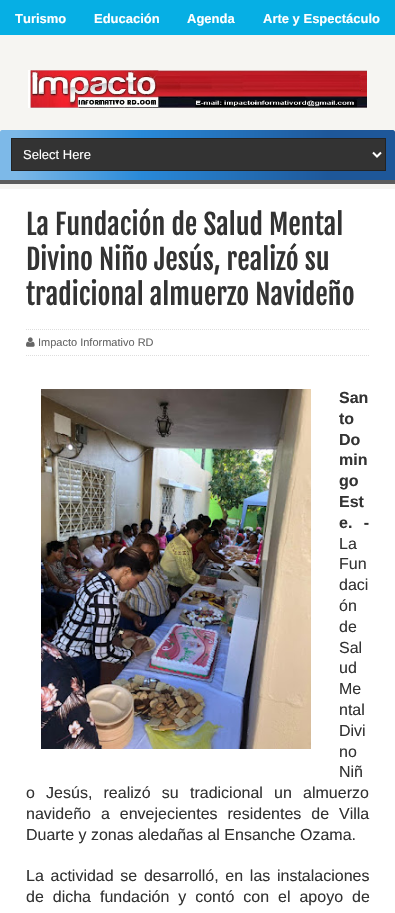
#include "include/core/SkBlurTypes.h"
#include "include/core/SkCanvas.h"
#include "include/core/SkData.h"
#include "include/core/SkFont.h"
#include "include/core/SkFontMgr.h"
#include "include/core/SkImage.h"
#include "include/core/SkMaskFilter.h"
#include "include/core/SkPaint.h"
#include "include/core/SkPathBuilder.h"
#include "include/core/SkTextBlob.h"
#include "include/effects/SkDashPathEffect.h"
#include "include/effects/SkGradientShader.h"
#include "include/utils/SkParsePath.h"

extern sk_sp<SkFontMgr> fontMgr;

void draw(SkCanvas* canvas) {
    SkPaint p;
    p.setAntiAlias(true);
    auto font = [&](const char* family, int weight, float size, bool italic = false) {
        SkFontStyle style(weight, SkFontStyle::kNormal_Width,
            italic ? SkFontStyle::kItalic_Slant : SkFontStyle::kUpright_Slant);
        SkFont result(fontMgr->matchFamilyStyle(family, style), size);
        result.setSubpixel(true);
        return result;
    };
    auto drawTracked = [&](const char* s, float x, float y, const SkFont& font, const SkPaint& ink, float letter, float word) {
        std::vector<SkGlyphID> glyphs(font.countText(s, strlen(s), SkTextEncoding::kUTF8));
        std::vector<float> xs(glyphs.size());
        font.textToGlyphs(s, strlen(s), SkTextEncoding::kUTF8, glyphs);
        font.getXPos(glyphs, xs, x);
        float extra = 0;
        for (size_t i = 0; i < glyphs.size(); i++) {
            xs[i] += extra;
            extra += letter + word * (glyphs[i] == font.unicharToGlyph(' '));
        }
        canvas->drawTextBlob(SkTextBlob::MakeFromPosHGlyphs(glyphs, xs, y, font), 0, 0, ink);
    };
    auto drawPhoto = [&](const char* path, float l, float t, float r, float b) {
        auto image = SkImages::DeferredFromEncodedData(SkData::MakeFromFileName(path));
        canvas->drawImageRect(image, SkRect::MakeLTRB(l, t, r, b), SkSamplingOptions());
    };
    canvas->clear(0xFFF6F5F2);
    p.setColor(0xFF06AFE4);
    canvas->drawRect(SkRect::MakeLTRB(0, 0, 395, 35), p);
    auto font1 = font("Liberation Sans", 700, 13);
    p.setColor(0xFFFFFFFF);
    {
        const struct { const char* s; float x, y; } items[] = {
            {"Turismo", 15, 23},
            {"Educación", 94, 23},
            {"Agenda", 187, 23},
            {"Arte y Espectáculo", 263, 23},
        };
        for (auto [s, x, y] : items) {
            canvas->drawString(s, x, y, font1, p);
        }
    }
    drawPhoto("media/1.png", 28, 70, 367, 108);
    {
        const SkColor colors[] = {0xFF7DB9E8, 0xFF2989D8, 0xFF1E5799};
        const float stops[] = {0.04f, 0.36f, 0.84f};
        const SkPoint ends[] = {{0, 155}, {395, 155}};
        p.setShader(SkGradientShader::MakeLinear(ends, colors, stops, 3, SkTileMode::kClamp));
        p.setAlpha(255);
    }
    canvas->drawPath(SkPathBuilder().moveTo(2, 130).lineTo(393, 130).cubicTo(394, 130, 395, 131, 395, 132).lineTo(395, 184).lineTo(0, 184).lineTo(0, 132).cubicTo(0, 131, 1, 130, 2, 130).close().detach(), p);
    p.setShader(nullptr);
    p.setColor(0xFF5C5C5C);
    canvas->drawRect(SkRect::MakeLTRB(0, 180, 395, 184), p);
    p.setColor(0xFF333333);
    canvas->drawRect(SkRect::MakeLTRB(11.5f, 138.5f, 385.5f, 170.5f), p);
    p.setStyle(SkPaint::kStroke_Style);
    p.setStrokeWidth(1);
    p.setColor(0xFF232323);
    canvas->drawRect(SkRect::MakeLTRB(11.5f, 138.5f, 385.5f, 170.5f), p);
    p.setStrokeWidth(2);
    p.setColor(0xFFFFFFFF);
    canvas->drawPath(SkPathBuilder().moveTo(373, 152.5f).lineTo(377, 156.5f).lineTo(381, 152.5f).detach(), p);
    auto font2 = font("Liberation Sans", 400, 13);
    p.setStyle(SkPaint::kFill_Style);
    canvas->drawString("Select Here", 23, 159, font2, p);
    canvas->drawRect(SkRect::MakeLTRB(0, 189, 395, 913), p);
    auto font3 = font("Fjalla One", 400, 28);
    p.setColor(0xFF333333);
    {
        const struct { const char* s; float x, y; } items[] = {
            {"La Fundación de Salud Mental", 26, 235},
            {"Divino Niño Jesús, realizó su", 26, 270},
            {"tradicional almuerzo Navideño", 26, 305},
        };
        for (auto [s, x, y] : items) {
            canvas->drawString(s, x, y, font3, p);
        }
    }
    p.setStyle(SkPaint::kStroke_Style);
    p.setStrokeWidth(1);
    p.setColor(0xFFDEDEDE);
    p.setPathEffect(SkDashPathEffect::Make({{1, 1}}, 0));
    canvas->drawPath(SkPathBuilder().moveTo(26, 329.5f).lineTo(369, 329.5f).detach(), p);
    p.setPathEffect(nullptr);
    p.setPathEffect(SkDashPathEffect::Make({{1, 1}}, 0));
    canvas->drawPath(SkPathBuilder().moveTo(26, 355.5f).lineTo(369, 355.5f).detach(), p);
    p.setPathEffect(nullptr);
    drawPhoto("media/2.png", 26, 337, 35, 347);
    auto font4 = font("Liberation Sans", 400, 11);
    p.setStyle(SkPaint::kFill_Style);
    p.setColor(0xFF666666);
    canvas->drawString("Impacto Informativo RD", 38, 346, font4, p);
    drawPhoto("media/3.png", 41, 389, 311, 749);
    auto font5 = font("Liberation Sans", 700, 16);
    p.setColor(0xFF333333);
    {
        const struct { const char* s; float x, y; } items[] = {
            {"San", 339, 403},
            {"to", 339, 424},
            {"Do", 339, 445},
            {"min", 339, 465},
            {"go", 339, 486},
            {"Est", 339, 507},
        };
        for (auto [s, x, y] : items) {
            canvas->drawString(s, x, y, font5, p);
        }
    }
    drawTracked("e. -", 339, 528, font5, p, 0, 7);
    auto font6 = font("Liberation Sans", 400, 16);
    {
        const struct { const char* s; float x, y; } items[] = {
            {"La", 339, 549},
            {"Fun", 339, 569},
            {"daci", 339, 590},
            {"ón", 339, 611},
            {"de", 339, 632},
            {"Sal", 339, 653},
            {"ud", 339, 673},
            {"Me", 339, 694},
            {"ntal", 339, 715},
            {"Divi", 339, 736},
            {"no", 339, 757},
            {"Niñ", 339, 777},
        };
        for (auto [s, x, y] : items) {
            canvas->drawString(s, x, y, font6, p);
        }
    }
    drawTracked("o Jesús, realizó su tradicional un almuerzo", 26, 798, font6, p, 0, 6.75f);
    drawTracked("navideño a envejecientes residentes de Villa", 26, 819, font6, p, 0, 5.5f);
    canvas->drawString("Duarte y zonas aledañas al Ensanche Ozama.", 26, 840, font6, p);
    drawTracked("La actividad se desarrolló, en las instalaciones", 26, 881, font6, p, 0, 2.25f);
    drawTracked("de dicha fundación y contó con el apoyo de", 26, 902, font6, p, 0, 4.5f);
}
